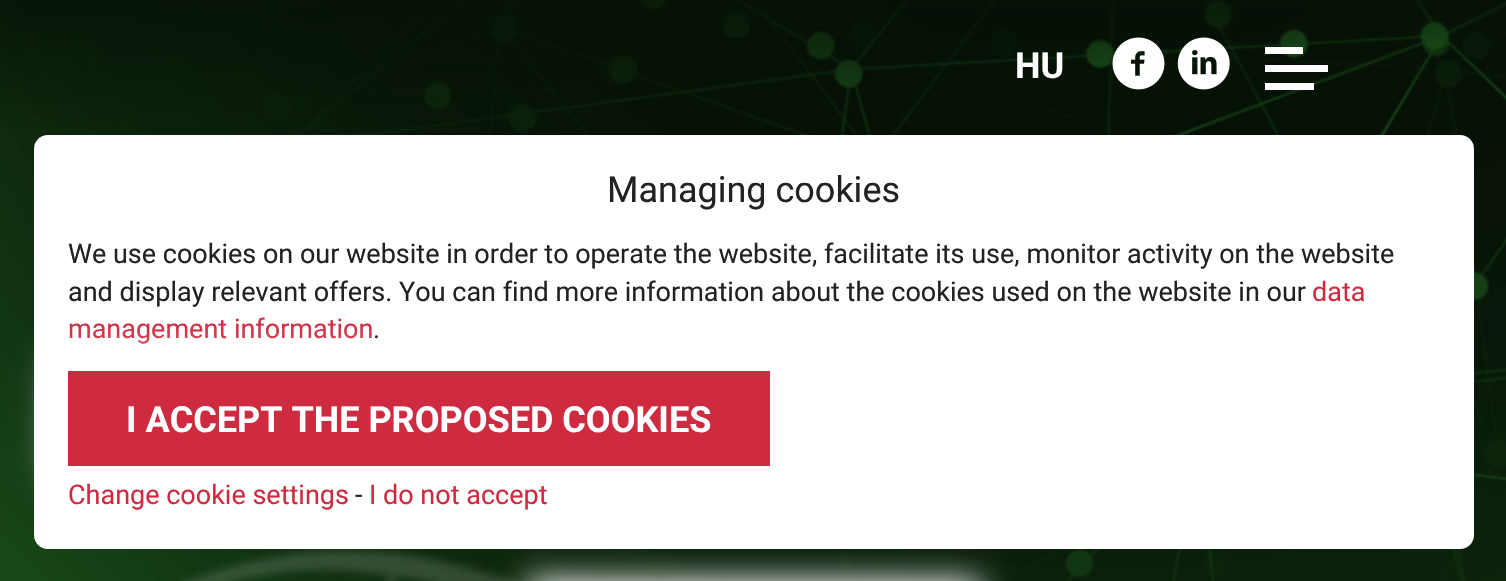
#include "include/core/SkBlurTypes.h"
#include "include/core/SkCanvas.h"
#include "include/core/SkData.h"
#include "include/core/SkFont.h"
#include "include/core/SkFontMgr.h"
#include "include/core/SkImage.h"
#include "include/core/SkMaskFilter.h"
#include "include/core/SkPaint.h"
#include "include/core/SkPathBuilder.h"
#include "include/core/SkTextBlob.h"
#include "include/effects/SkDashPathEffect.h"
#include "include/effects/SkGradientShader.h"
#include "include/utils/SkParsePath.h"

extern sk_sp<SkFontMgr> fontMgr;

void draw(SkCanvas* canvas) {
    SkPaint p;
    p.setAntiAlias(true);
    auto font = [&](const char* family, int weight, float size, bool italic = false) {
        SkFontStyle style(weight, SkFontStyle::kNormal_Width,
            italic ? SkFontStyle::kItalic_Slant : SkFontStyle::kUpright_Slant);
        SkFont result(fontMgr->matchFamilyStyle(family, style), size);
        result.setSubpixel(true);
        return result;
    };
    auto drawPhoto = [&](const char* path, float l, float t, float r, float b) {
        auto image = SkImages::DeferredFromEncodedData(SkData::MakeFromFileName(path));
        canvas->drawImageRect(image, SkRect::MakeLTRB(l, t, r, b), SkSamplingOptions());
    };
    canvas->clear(0xFFFFFFFF);
    drawPhoto("media/1.png", 0, 0, 1506, 581);
    drawPhoto("media/2.png", 180, 549, 518, 581);
    p.setColor(0xFFFFFFFF);
    p.setMaskFilter(SkMaskFilter::MakeBlur(kNormal_SkBlurStyle, 17));
    canvas->drawRect(SkRect::MakeLTRB(527, 581, 981, 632), p);
    p.setMaskFilter(nullptr);
    auto font1 = font("Roboto", 700, 36);
    canvas->drawString("HU", 1015, 78, font1, p);
    drawPhoto("media/3.png", 1112, 37, 1165, 90);
    drawPhoto("media/4.png", 1177, 37, 1230, 90);
    {
        const struct { float l, t, r, b; SkColor color; } items[] = {
            {1265, 47, 1303, 54, 0xFFFFFFFF},
            {1265, 65, 1328, 72, 0xFFFFFFFF},
            {1265, 83, 1314, 90, 0xFFFFFFFF},
        };
        for (auto [l, t, r, b, color] : items) {
            p.setColor(color);
            canvas->drawRect(SkRect::MakeLTRB(l, t, r, b), p);
        }
    }
    canvas->drawRoundRect(SkRect::MakeLTRB(34, 135, 1474, 549), 14, 14, p);
    auto font2 = font("Roboto", 400, 36);
    p.setColor(0xFF222222);
    canvas->drawString("Managing cookies", 607, 202, font2, p);
    auto font3 = font("Roboto", 400, 27);
    canvas->drawString("We use cookies on our website in order to operate the website, facilitate its use, monitor activity on the website", 68, 263, font3, p);
    canvas->drawString("and display relevant offers. You can find more information about the cookies used on the website in our", 68, 301, font3, p);
    p.setColor(0xFFCE2B40);
    canvas->drawString("data", 1312, 301, font3, p);
    canvas->drawString("management information", 68, 338, font3, p);
    p.setColor(0xFF222222);
    canvas->drawString(".", 373, 338, font3, p);
    p.setColor(0xFFFFFFFF);
    p.setMaskFilter(SkMaskFilter::MakeBlur(kNormal_SkBlurStyle, 17));
    canvas->drawRect(SkRect::MakeLTRB(56, 360, 781, 477), p);
    p.setMaskFilter(nullptr);
    p.setColor(0xFFCE2B40);
    canvas->drawRect(SkRect::MakeLTRB(68, 371, 770, 466), p);
    p.setColor(0xFFFFFFFF);
    canvas->drawString("I ACCEPT THE PROPOSED COOKIES", 126, 432, font1, p);
    p.setColor(0xFFCE2B40);
    canvas->drawString("Change cookie settings", 68, 504, font3, p);
    p.setColor(0xFF222222);
    canvas->drawString("-", 355, 504, font3, p);
    p.setColor(0xFFCE2B40);
    canvas->drawString("I do not accept", 369, 504, font3, p);
}
